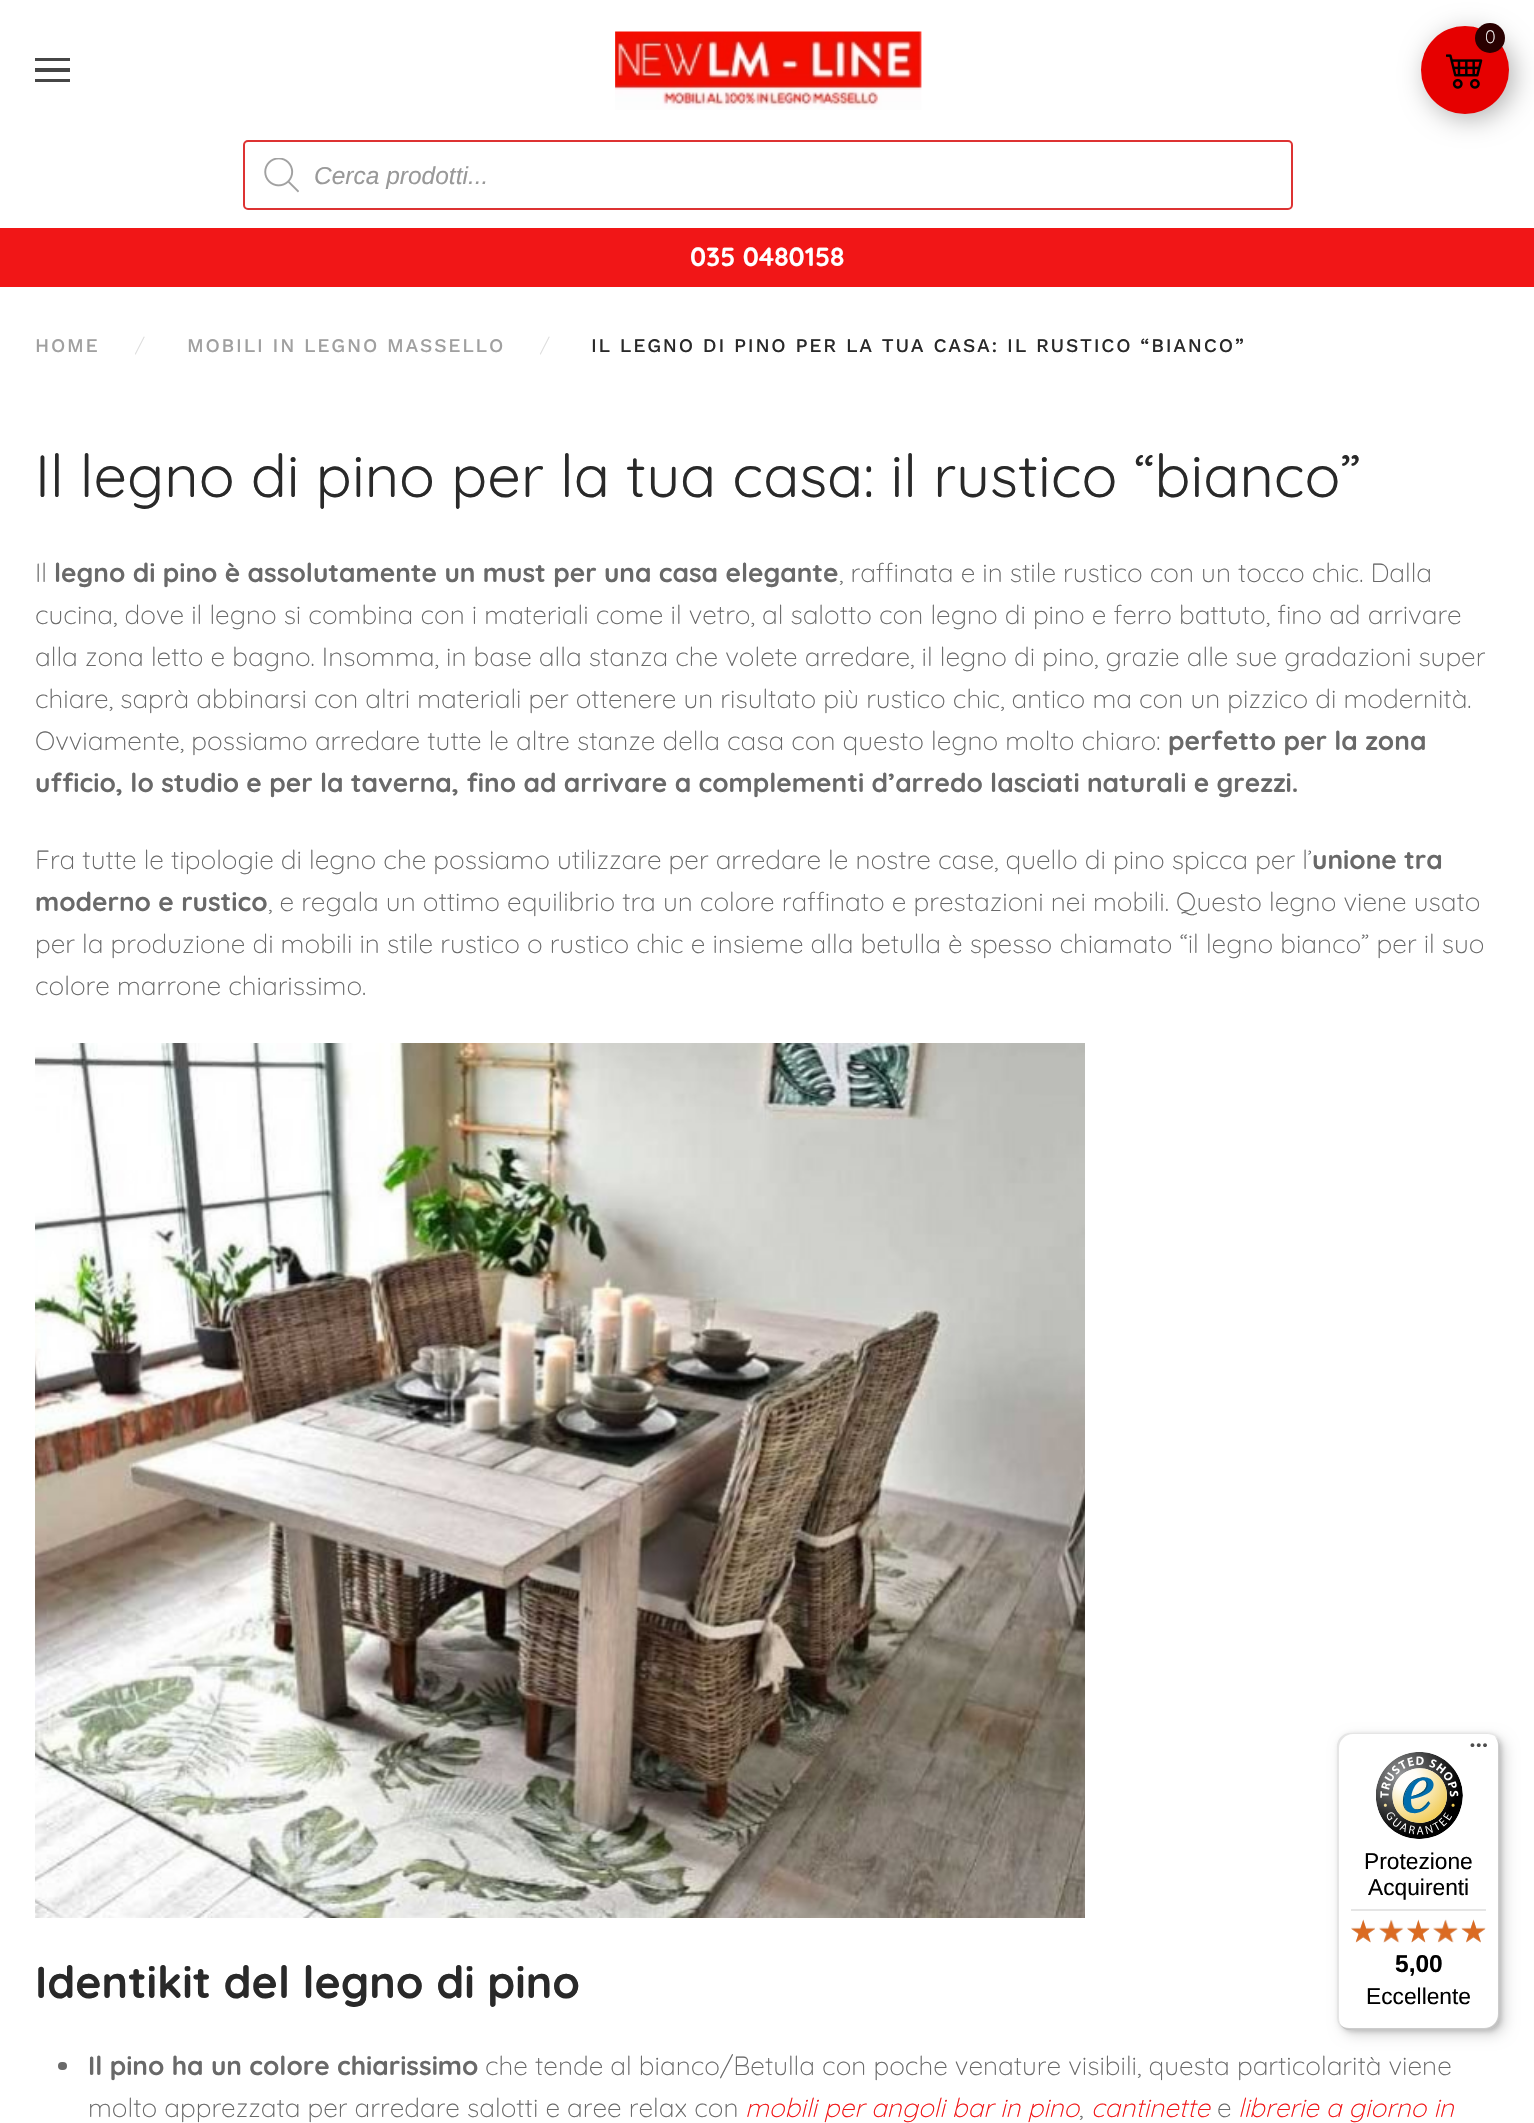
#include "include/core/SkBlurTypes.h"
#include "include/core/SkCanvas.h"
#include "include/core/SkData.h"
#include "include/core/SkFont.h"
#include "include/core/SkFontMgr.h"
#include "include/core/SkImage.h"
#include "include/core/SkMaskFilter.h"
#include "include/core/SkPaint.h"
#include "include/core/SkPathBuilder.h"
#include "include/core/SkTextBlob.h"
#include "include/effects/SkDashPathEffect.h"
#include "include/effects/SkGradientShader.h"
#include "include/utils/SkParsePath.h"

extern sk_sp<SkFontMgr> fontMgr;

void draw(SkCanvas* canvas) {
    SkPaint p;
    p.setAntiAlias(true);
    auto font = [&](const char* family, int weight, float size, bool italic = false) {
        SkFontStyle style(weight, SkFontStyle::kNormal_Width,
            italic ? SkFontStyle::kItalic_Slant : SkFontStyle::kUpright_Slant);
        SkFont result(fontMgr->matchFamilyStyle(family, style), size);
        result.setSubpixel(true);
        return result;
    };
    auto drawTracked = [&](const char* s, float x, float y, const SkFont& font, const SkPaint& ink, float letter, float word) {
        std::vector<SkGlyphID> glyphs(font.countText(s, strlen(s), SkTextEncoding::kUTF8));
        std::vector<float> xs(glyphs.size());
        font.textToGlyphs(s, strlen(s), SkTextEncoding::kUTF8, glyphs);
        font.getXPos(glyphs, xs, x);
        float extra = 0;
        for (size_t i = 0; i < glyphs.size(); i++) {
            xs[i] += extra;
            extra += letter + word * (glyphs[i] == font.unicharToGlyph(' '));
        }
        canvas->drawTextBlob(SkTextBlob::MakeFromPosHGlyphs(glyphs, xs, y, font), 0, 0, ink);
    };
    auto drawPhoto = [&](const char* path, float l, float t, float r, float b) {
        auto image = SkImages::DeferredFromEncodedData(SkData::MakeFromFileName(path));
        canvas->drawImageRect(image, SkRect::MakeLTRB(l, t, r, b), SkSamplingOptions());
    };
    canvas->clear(0xFFFFFFFF);
    p.setColor(0x4D000000);
    p.setMaskFilter(SkMaskFilter::MakeBlur(kNormal_SkBlurStyle, 13));
    canvas->drawRoundRect(SkRect::MakeLTRB(1426, 32, 1514, 119), 43.5f, 43.5f, p);
    p.setMaskFilter(nullptr);
    p.setColor(0xFFE60000);
    canvas->drawCircle(1465, 70, 44, p);
    p.setColor(0xFF290000);
    canvas->drawCircle(1490, 38, 15, p);
    auto font1 = font("Quicksand", 300, 18);
    p.setColor(0xFFFFFFFF);
    canvas->drawString("0", 1485, 43, font1, p);
    drawPhoto("media/1.png", 1446, 54, 1483, 89);
    {
        const struct { float l, t, r, b; SkColor color; } items[] = {
            {35, 58, 70, 61, 0xFF464646},
            {35, 68, 70, 72, 0xFF464646},
            {35, 79, 70, 82, 0xFF464646},
        };
        for (auto [l, t, r, b, color] : items) {
            p.setColor(color);
            canvas->drawRect(SkRect::MakeLTRB(l, t, r, b), p);
        }
    }
    drawPhoto("media/2.png", 615, 31, 922, 110);
    p.setStyle(SkPaint::kStroke_Style);
    p.setStrokeWidth(2);
    p.setColor(0xFFDD3333);
    canvas->drawRoundRect(SkRect::MakeLTRB(244, 141, 1292, 209), 4, 4, p);
    drawPhoto("media/3.png", 264, 158, 299, 193);
    auto font2 = font("Liberation Sans", 400, 24.5f, true);
    p.setStyle(SkPaint::kFill_Style);
    p.setColor(0xFF999999);
    canvas->drawString("Cerca prodotti...", 314, 184, font2, p);
    p.setColor(0xFFF11617);
    canvas->drawRect(SkRect::MakeLTRB(0, 228, 1534, 287), p);
    auto font3 = font("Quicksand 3", 300, 26.25f);
    p.setColor(0xFFFFFFFF);
    canvas->drawString("035 0480158", 690, 266, font3, p);
    auto font4 = font("Work Sans", 500, 19.25f);
    p.setColor(0xFFA0A0A0);
    drawTracked("HOME", 35, 352, font4, p, 1.75f, 0);
    auto font5 = font("Quicksand", 300, 19.25f);
    p.setColor(0xFFDCDCDC);
    canvas->drawString("/", 135, 352, font5, p);
    p.setColor(0xFFA0A0A0);
    drawTracked("MOBILI IN LEGNO MASSELLO", 187, 352, font4, p, 1.75f, 0);
    p.setColor(0xFFDCDCDC);
    canvas->drawString("/", 540, 352, font5, p);
    p.setColor(0xFF292929);
    drawTracked("IL LEGNO DI PINO PER LA TUA CASA: IL RUSTICO “BIANCO”", 591, 352, font4, p, 1.75f, 0);
    auto font6 = font("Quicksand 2", 300, 59.5f);
    canvas->drawString("Il legno di pino per la tua casa: il rustico “bianco”", 35, 497, font6, p);
    auto font7 = font("Quicksand", 300, 26.25f);
    p.setColor(0xFF696969);
    canvas->drawString("Il", 35, 582, font7, p);
    canvas->drawString("legno di pino è assolutamente un must per una casa elegante", 54, 582, font3, p);
    {
        const struct { const char* s; float x, y; } items[] = {
            {", raffinata e in stile rustico con un tocco chic. Dalla", 839, 582},
            {"cucina, dove il legno si combina con i materiali come il vetro, al salotto con legno di pino e ferro battuto, fino ad arrivare", 35, 624},
            {"alla zona letto e bagno. Insomma, in base alla stanza che volete arredare, il legno di pino, grazie alle sue gradazioni super", 35, 666},
            {"chiare, saprà abbinarsi con altri materiali per ottenere un risultato più rustico chic, antico ma con un pizzico di modernità.", 35, 708},
            {"Ovviamente, possiamo arredare tutte le altre stanze della casa con questo legno molto chiaro:", 35, 750},
        };
        for (auto [s, x, y] : items) {
            canvas->drawString(s, x, y, font7, p);
        }
    }
    canvas->drawString("perfetto per la zona", 1168, 750, font3, p);
    canvas->drawString("ufficio, lo studio e per la taverna, fino ad arrivare a complementi d’arredo lasciati naturali e grezzi.", 35, 792, font3, p);
    canvas->drawString("Fra tutte le tipologie di legno che possiamo utilizzare per arredare le nostre case, quello di pino spicca per l’", 35, 869, font7, p);
    canvas->drawString("unione tra", 1312, 869, font3, p);
    canvas->drawString("moderno e rustico", 35, 911, font3, p);
    {
        const struct { const char* s; float x, y; } items[] = {
            {", e regala un ottimo equilibrio tra un colore raffinato e prestazioni nei mobili. Questo legno viene usato", 268, 911},
            {"per la produzione di mobili in stile rustico o rustico chic e insieme alla betulla è spesso chiamato “il legno bianco” per il suo", 35, 953},
            {"colore marrone chiarissimo.", 35, 995},
        };
        for (auto [s, x, y] : items) {
            canvas->drawString(s, x, y, font7, p);
        }
    }
    drawPhoto("media/4.png", 35, 1043, 1085, 1918);
    auto font8 = font("Quicksand 3", 300, 44.6f);
    p.setColor(0xFF292929);
    canvas->drawString("Identikit del legno di pino", 35, 1998, font8, p);
    p.setColor(0xFF696969);
    canvas->drawRoundRect(SkRect::MakeLTRB(58, 2062, 67, 2070), 4, 4, p);
    canvas->drawString("Il pino ha un colore chiarissimo", 88, 2075, font3, p);
    canvas->drawString("che tende al bianco/Betulla con poche venature visibili, questa particolarità viene", 485, 2075, font7, p);
    canvas->drawString("molto apprezzata per arredare salotti e aree relax con", 88, 2117, font7, p);
    auto font9 = font("Quicksand", 300, 26.25f, true);
    p.setColor(0xFFF11617);
    canvas->drawString("mobili per angoli bar in pino", 745, 2117, font9, p);
    p.setColor(0xFF696969);
    canvas->drawString(",", 1079, 2117, font7, p);
    p.setColor(0xFFF11617);
    canvas->drawString("cantinette", 1091, 2117, font9, p);
    p.setColor(0xFF696969);
    canvas->drawString("e", 1217, 2117, font7, p);
    p.setColor(0xFFF11617);
    canvas->drawString("librerie a giorno in", 1238, 2117, font9, p);
    p.setColor(0x26000000);
    p.setMaskFilter(SkMaskFilter::MakeBlur(kNormal_SkBlurStyle, 7));
    canvas->drawRoundRect(SkRect::MakeLTRB(1342, 1738, 1505, 2035), 14, 14, p);
    p.setMaskFilter(nullptr);
    p.setMaskFilter(SkMaskFilter::MakeBlur(kNormal_SkBlurStyle, 2));
    canvas->drawRoundRect(SkRect::MakeLTRB(1339, 1734, 1502, 2032), 14, 14, p);
    p.setMaskFilter(nullptr);
    p.setColor(0xFFFFFFFF);
    canvas->drawRoundRect(SkRect::MakeLTRB(1337, 1733, 1500, 2030), 14, 14, p);
    p.setColor(0x1A000000);
    canvas->drawPath(SkPathBuilder().moveTo(1353, 1734).lineTo(1488, 1734).cubicTo(1490, 1734, 1493, 1735, 1495, 1736).cubicTo(1492, 1734, 1489, 1733, 1486, 1733).lineTo(1351, 1733).cubicTo(1343, 1733, 1337, 1739, 1337, 1747).lineTo(1337, 2016).cubicTo(1337, 2021, 1339, 2025, 1343, 2027).cubicTo(1340, 2025, 1339, 2021, 1339, 2018).lineTo(1339, 1748).cubicTo(1339, 1741, 1345, 1734, 1353, 1734).close().detach(), p);
    p.setColor(0x33000000);
    canvas->drawPath(SkPathBuilder().moveTo(1340, 2024).cubicTo(1342, 2028, 1346, 2030, 1351, 2030).lineTo(1486, 2030).cubicTo(1494, 2030, 1500, 2024, 1500, 2016).lineTo(1500, 1747).cubicTo(1500, 1743, 1498, 1739, 1495, 1737).cubicTo(1497, 1739, 1498, 1742, 1498, 1745).lineTo(1498, 2014).cubicTo(1498, 2022, 1492, 2028, 1484, 2028).lineTo(1349, 2028).cubicTo(1346, 2028, 1342, 2027, 1340, 2024).close().detach(), p);
    p.setColor(0x33323232);
    canvas->drawPath(SkPathBuilder().moveTo(1342, 2026).cubicTo(1344, 2029, 1347, 2030, 1351, 2030).lineTo(1486, 2030).cubicTo(1494, 2030, 1500, 2024, 1500, 2016).lineTo(1500, 1747).cubicTo(1500, 1744, 1499, 1741, 1497, 1738).cubicTo(1498, 1740, 1499, 1743, 1499, 1745).lineTo(1499, 2015).cubicTo(1499, 2023, 1492, 2029, 1485, 2029).lineTo(1350, 2029).cubicTo(1347, 2029, 1344, 2028, 1342, 2026).close().detach(), p);
    p.setColor(0x4DFFFFFF);
    canvas->drawPath(SkPathBuilder().moveTo(1342, 2026).cubicTo(1344, 2029, 1347, 2030, 1351, 2030).lineTo(1486, 2030).cubicTo(1494, 2030, 1500, 2024, 1500, 2016).lineTo(1500, 1747).cubicTo(1500, 1743, 1499, 1740, 1496, 1738).cubicTo(1498, 1740, 1499, 1743, 1499, 1746).lineTo(1499, 2015).cubicTo(1499, 2023, 1493, 2029, 1485, 2029).lineTo(1350, 2029).cubicTo(1347, 2029, 1344, 2028, 1342, 2026).close().detach(), p);
    drawPhoto("media/5.png", 1470, 1743, 1487, 1747);
    drawPhoto("media/6.png", 1376, 1752, 1463, 1839);
    auto font10 = font("Liberation Sans", 400, 22.75f);
    p.setColor(0xFF000000);
    canvas->drawString("Protezione", 1364, 1869, font10, p);
    canvas->drawString("Acquirenti", 1368, 1895, font10, p);
    p.setColor(0xFFE5E5E5);
    canvas->drawRect(SkRect::MakeLTRB(1351, 1909, 1486, 1911), p);
    drawPhoto("media/12.png", 1351, 1920, 1375, 1942);
    drawPhoto("media/7.png", 1351, 1919, 1375, 1943);
    drawPhoto("media/13.png", 1379, 1920, 1403, 1943);
    drawPhoto("media/8.png", 1379, 1919, 1404, 1943);
    drawPhoto("media/14.png", 1407, 1920, 1430, 1942);
    drawPhoto("media/9.png", 1407, 1919, 1430, 1943);
    drawPhoto("media/15.png", 1433, 1920, 1458, 1942);
    drawPhoto("media/10.png", 1433, 1919, 1458, 1943);
    drawPhoto("media/16.png", 1461, 1920, 1486, 1942);
    drawPhoto("media/11.png", 1461, 1919, 1486, 1943);
    auto font11 = font("Liberation Sans", 700, 24.5f);
    p.setColor(0xFF000000);
    canvas->drawString("5,00", 1395, 1972, font11, p);
    canvas->drawString("Eccellente", 1366, 2004, font10, p);
}
